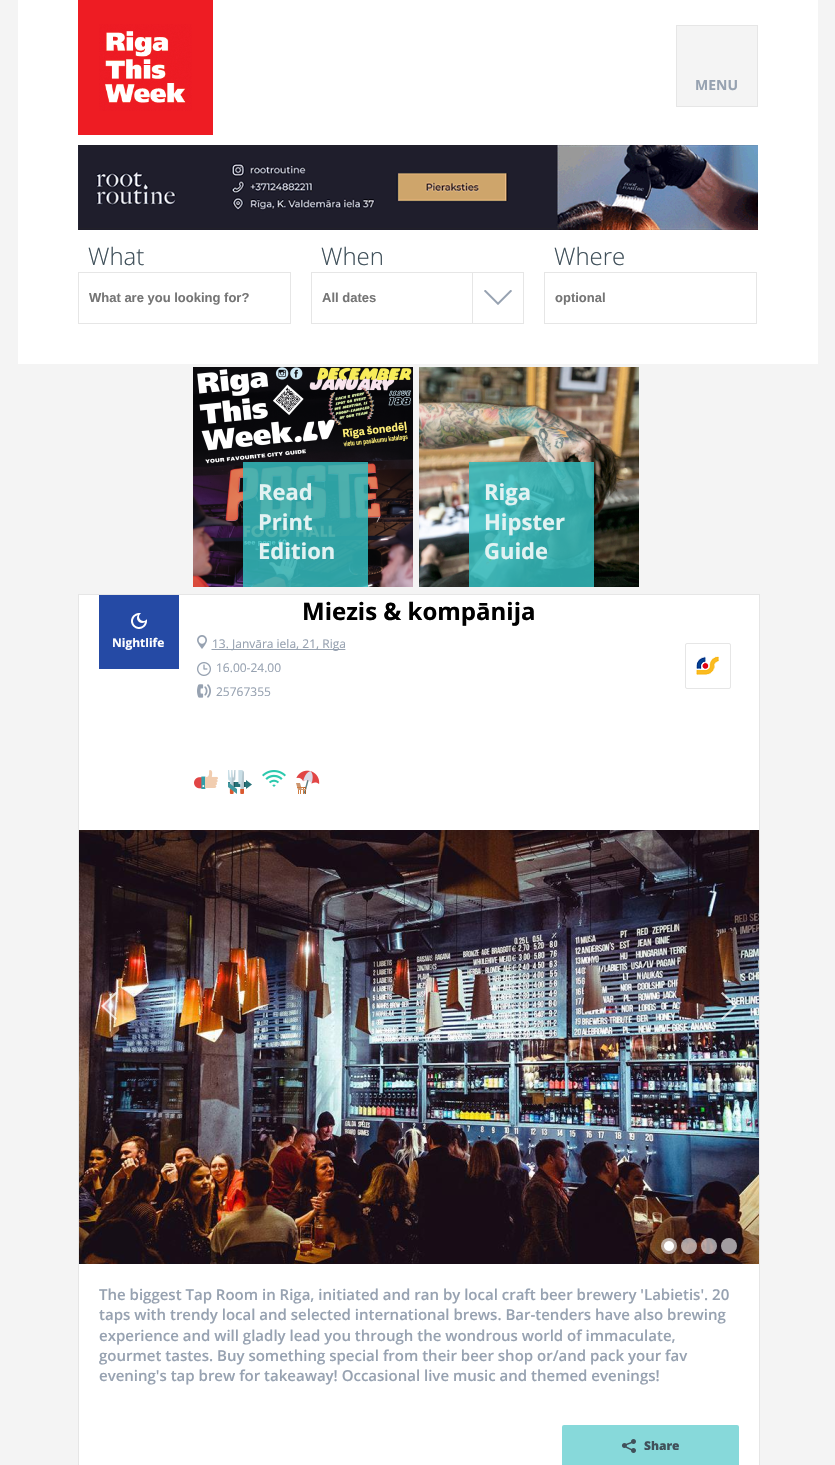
#include "include/core/SkBlurTypes.h"
#include "include/core/SkCanvas.h"
#include "include/core/SkData.h"
#include "include/core/SkFont.h"
#include "include/core/SkFontMgr.h"
#include "include/core/SkImage.h"
#include "include/core/SkMaskFilter.h"
#include "include/core/SkPaint.h"
#include "include/core/SkPathBuilder.h"
#include "include/core/SkTextBlob.h"
#include "include/effects/SkDashPathEffect.h"
#include "include/effects/SkGradientShader.h"
#include "include/utils/SkParsePath.h"

extern sk_sp<SkFontMgr> fontMgr;

void draw(SkCanvas* canvas) {
    SkPaint p;
    p.setAntiAlias(true);
    auto font = [&](const char* family, int weight, float size, bool italic = false) {
        SkFontStyle style(weight, SkFontStyle::kNormal_Width,
            italic ? SkFontStyle::kItalic_Slant : SkFontStyle::kUpright_Slant);
        SkFont result(fontMgr->matchFamilyStyle(family, style), size);
        result.setSubpixel(true);
        return result;
    };
    auto drawPhoto = [&](const char* path, float l, float t, float r, float b) {
        auto image = SkImages::DeferredFromEncodedData(SkData::MakeFromFileName(path));
        canvas->drawImageRect(image, SkRect::MakeLTRB(l, t, r, b), SkSamplingOptions());
    };
    canvas->clear(0xFFF4F4F4);
    p.setColor(0xFFFFFFFF);
    canvas->drawRect(SkRect::MakeLTRB(18, 0, 818, 364), p);
    drawPhoto("media/1.png", 78, 0, 213, 135);
    p.setColor(0xFFF4F4F4);
    canvas->drawRect(SkRect::MakeLTRB(676.5f, 25.5f, 757.5f, 106.5f), p);
    p.setStyle(SkPaint::kStroke_Style);
    p.setStrokeWidth(1);
    p.setColor(0xFFE6E6E6);
    canvas->drawRect(SkRect::MakeLTRB(676.5f, 25.5f, 757.5f, 106.5f), p);
    auto font1 = font("Open Sans", 700, 14);
    p.setStyle(SkPaint::kFill_Style);
    p.setColor(0xFF97A2B1);
    canvas->drawString("MENU", 695, 90, font1, p);
    drawPhoto("media/2.png", 78, 145, 758, 230);
    auto font2 = font("Open Sans", 300, 24);
    p.setColor(0xFF40505A);
    canvas->drawString("What", 88, 265, font2, p);
    p.setStyle(SkPaint::kStroke_Style);
    p.setColor(0xFFE6E6E6);
    canvas->drawRect(SkRect::MakeLTRB(78.5f, 272.5f, 290.5f, 323.5f), p);
    auto font3 = font("Liberation Sans", 700, 13);
    p.setStyle(SkPaint::kFill_Style);
    p.setColor(0xFF757575);
    canvas->drawString("What are you looking for?", 89, 302, font3, p);
    p.setColor(0xFF40505A);
    canvas->drawString("When", 321, 265, font2, p);
    p.setStyle(SkPaint::kStroke_Style);
    p.setColor(0xFFE6E6E6);
    canvas->drawRect(SkRect::MakeLTRB(311.5f, 272.5f, 523.5f, 323.5f), p);
    p.setStyle(SkPaint::kFill_Style);
    p.setColor(0xFF757575);
    canvas->drawString("All dates", 322, 302, font3, p);
    drawPhoto("media/3.png", 484, 290, 512, 305);
    p.setStyle(SkPaint::kStroke_Style);
    p.setColor(0xFFE6E6E6);
    canvas->drawRect(SkRect::MakeLTRB(472.5f, 272.5f, 523.5f, 323.5f), p);
    p.setStyle(SkPaint::kFill_Style);
    p.setColor(0xFF40505A);
    canvas->drawString("Where", 554, 265, font2, p);
    p.setStyle(SkPaint::kStroke_Style);
    p.setColor(0xFFE6E6E6);
    canvas->drawRect(SkRect::MakeLTRB(544.5f, 272.5f, 756.5f, 323.5f), p);
    p.setStyle(SkPaint::kFill_Style);
    p.setColor(0xFF757575);
    canvas->drawString("optional", 555, 302, font3, p);
    drawPhoto("media/4.png", 193, 367, 413, 587);
    p.setColor(0xD933BBBD);
    canvas->drawRect(SkRect::MakeLTRB(243, 462, 368, 587), p);
    auto font4 = font("Open Sans", 700, 22);
    p.setColor(0xFFE2F2F2);
    {
        const struct { const char* s; float x, y; } items[] = {
            {"Read", 258, 500},
            {"Print", 258, 530},
            {"Edition", 258, 559},
        };
        for (auto [s, x, y] : items) {
            canvas->drawString(s, x, y, font4, p);
        }
    }
    drawPhoto("media/5.png", 419, 367, 639, 587);
    p.setColor(0xD933BBBD);
    canvas->drawRect(SkRect::MakeLTRB(469, 462, 594, 587), p);
    p.setColor(0xFFE2F2F2);
    {
        const struct { const char* s; float x, y; } items[] = {
            {"Riga", 484, 500},
            {"Hipster", 484, 530},
            {"Guide", 484, 559},
        };
        for (auto [s, x, y] : items) {
            canvas->drawString(s, x, y, font4, p);
        }
    }
    p.setColor(0xFFFFFFFF);
    canvas->drawRect(SkRect::MakeLTRB(78.5f, 594.5f, 759.5f, 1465.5f), p);
    p.setStyle(SkPaint::kStroke_Style);
    p.setColor(0xFFE6E6E6);
    canvas->drawRect(SkRect::MakeLTRB(78.5f, 594.5f, 759.5f, 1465.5f), p);
    auto font5 = font("Open Sans", 700, 24);
    p.setStyle(SkPaint::kFill_Style);
    p.setColor(0xFF000000);
    canvas->drawString("Miezis & kompānija", 302, 620, font5, p);
    p.setColor(0xFF254AA5);
    canvas->drawRect(SkRect::MakeLTRB(99, 595, 179, 669), p);
    drawPhoto("media/6.png", 131, 613, 147, 629);
    auto font6 = font("Open Sans", 700, 12);
    p.setColor(0xFFFFFFFF);
    canvas->drawString("Nightlife", 112, 647, font6, p);
    drawPhoto("media/7.png", 197, 635, 346, 650);
    p.setColor(0xFF97A2B1);
    canvas->drawRect(SkRect::MakeLTRB(231, 649, 345, 650), p);
    auto font7 = font("Open Sans", 400, 12);
    canvas->drawString("13. Janvāra iela, 21, Riga", 212, 648, font7, p);
    drawPhoto("media/8.png", 197, 662, 211, 676);
    canvas->drawString("16.00-24.00", 216, 672, font7, p);
    drawPhoto("media/9.png", 197, 684, 211, 698);
    canvas->drawString("25767355", 216, 696, font7, p);
    drawPhoto("media/10.png", 696, 656, 719, 675);
    p.setStyle(SkPaint::kStroke_Style);
    p.setColor(0xFFE6E6E6);
    canvas->drawRoundRect(SkRect::MakeLTRB(685.5f, 643.5f, 730.5f, 688.5f), 1.5f, 1.5f, p);
    drawPhoto("media/11.png", 194, 770, 218, 789);
    drawPhoto("media/12.png", 228, 770, 252, 794);
    drawPhoto("media/13.png", 262, 770, 286, 787);
    drawPhoto("media/14.png", 296, 770, 320, 794);
    drawPhoto("media/15.png", 79, 830, 759, 1264);
    drawPhoto("media/16.png", 101, 992, 117, 1020);
    drawPhoto("media/17.png", 721, 992, 737, 1020);
    p.setStyle(SkPaint::kFill_Style);
    p.setColor(0x99FFFFFF);
    canvas->drawCircle(669, 1246, 8, p);
    drawPhoto("media/18.png", 664, 1241, 674, 1251);
    canvas->drawCircle(689, 1246, 8, p);
    canvas->drawCircle(709, 1246, 8, p);
    canvas->drawCircle(729, 1246, 8, p);
    auto font8 = font("Open Sans", 600, 15);
    p.setColor(0xFF97A2B1);
    {
        const struct { const char* s; float x, y; } items[] = {
            {"The biggest Tap Room in Riga, initiated and ran by local craft beer brewery 'Labietis'. 20", 99, 1300},
            {"taps with trendy local and selected international brews. Bar-tenders have also brewing", 99, 1320},
            {"experience and will gladly lead you through the wondrous world of immaculate,", 99, 1341},
            {"gourmet tastes. Buy something special from their beer shop or/and pack your fav", 99, 1361},
            {"evening's tap brew for takeaway! Occasional live music and themed evenings!", 99, 1381},
        };
        for (auto [s, x, y] : items) {
            canvas->drawString(s, x, y, font8, p);
        }
    }
    p.setColor(0xFF87D9DA);
    canvas->drawRoundRect(SkRect::MakeLTRB(562, 1425, 739, 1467), 2, 2, p);
    drawPhoto("media/19.png", 621, 1439, 636, 1453);
    auto font9 = font("Open Sans", 800, 12);
    p.setColor(0xFF40505A);
    canvas->drawString("Share", 644, 1450, font9, p);
}
